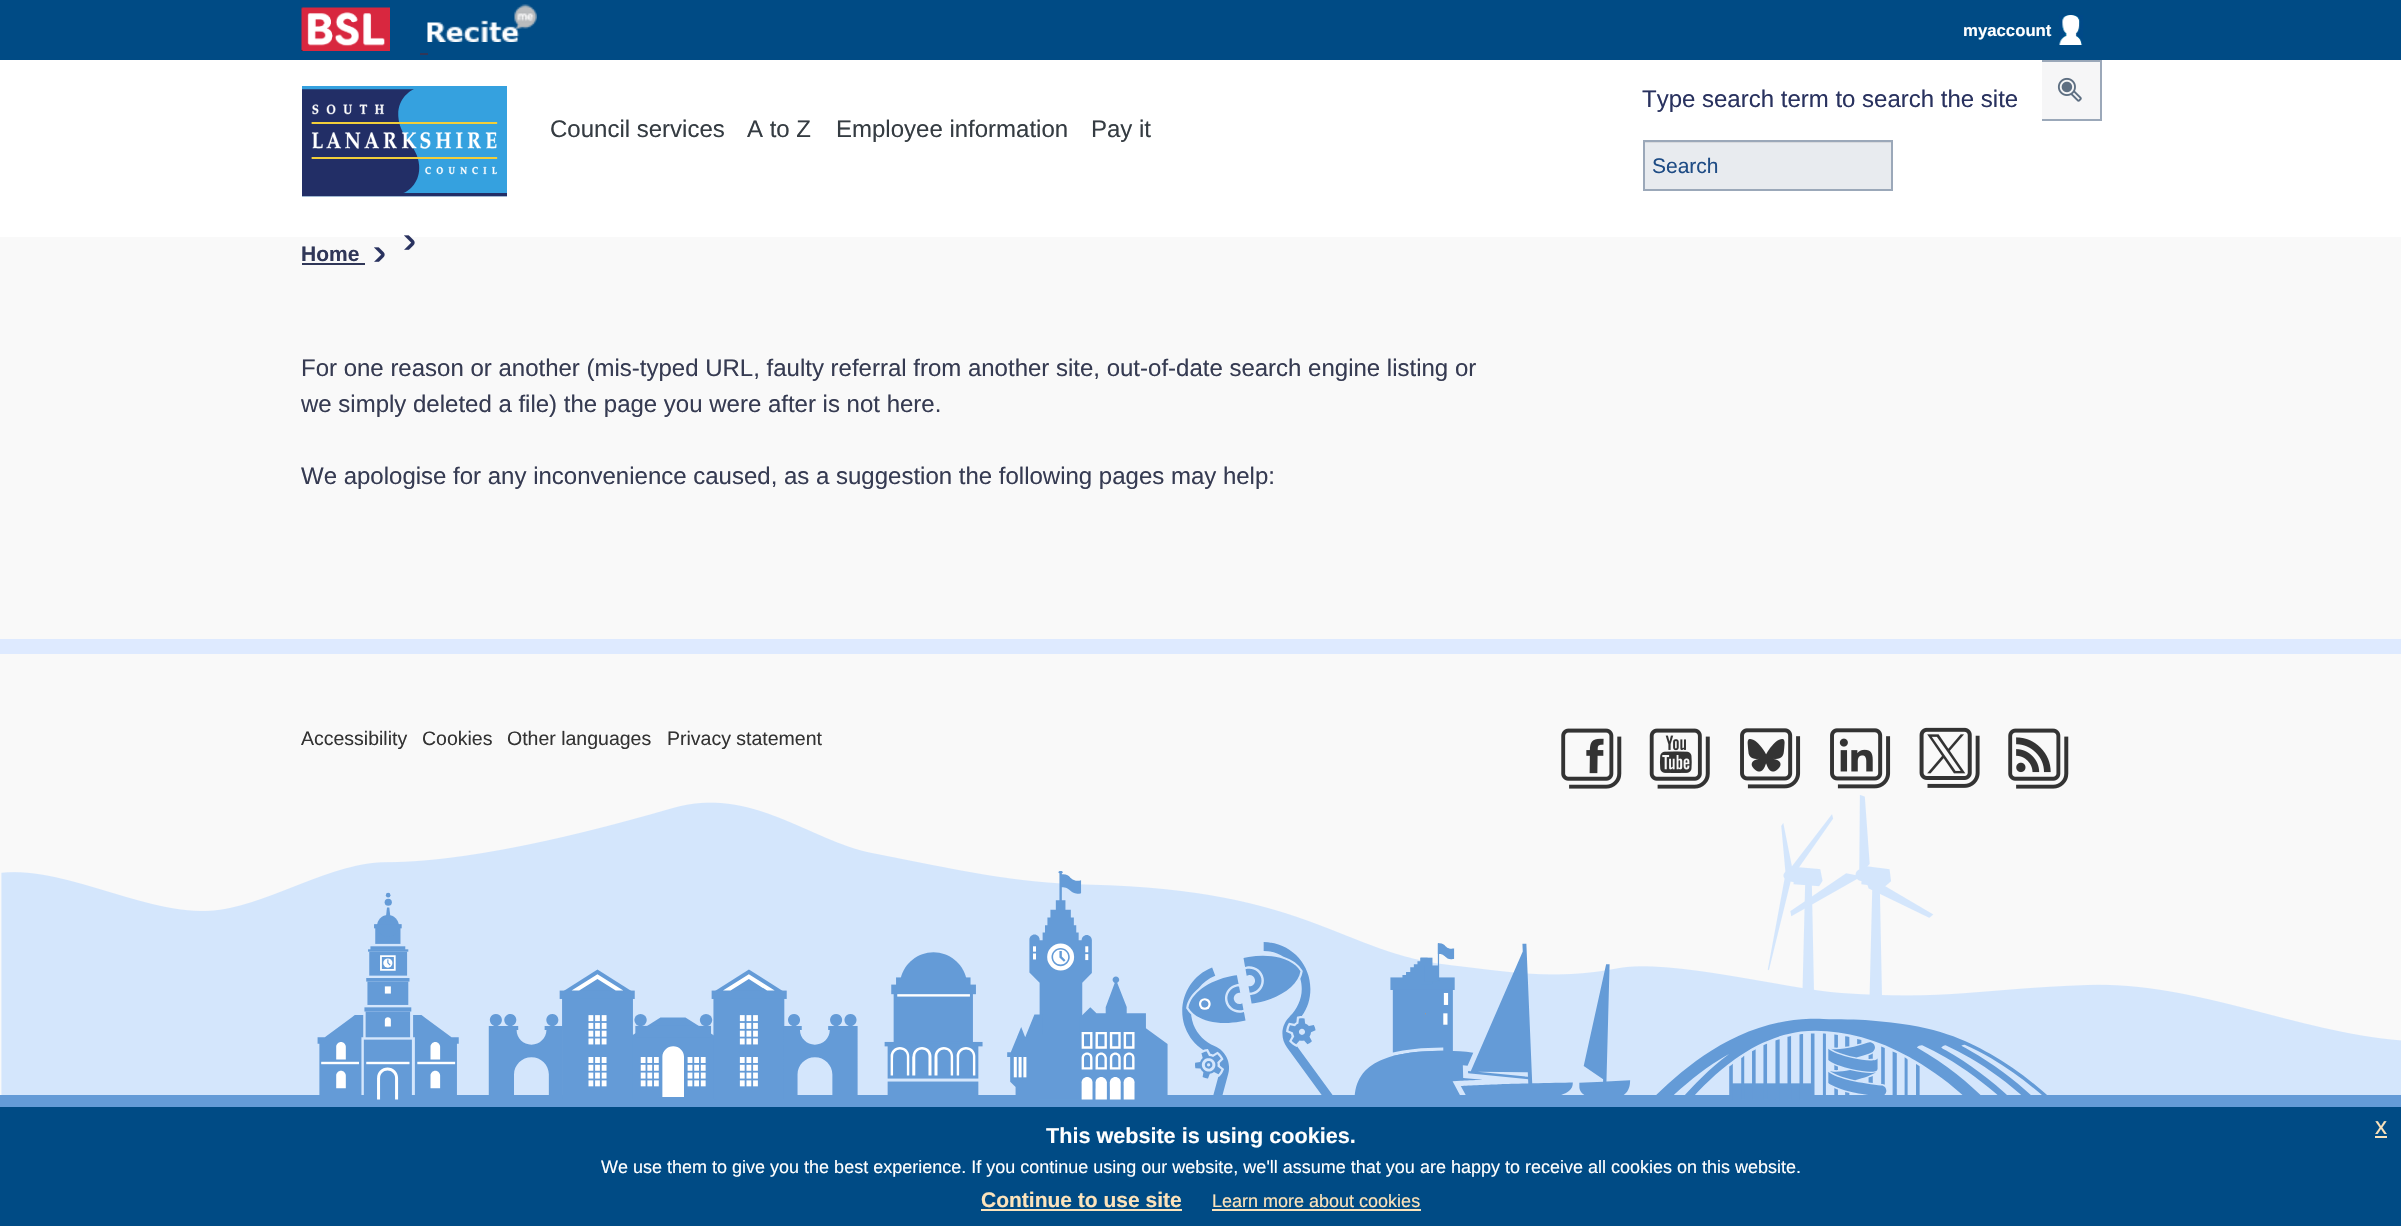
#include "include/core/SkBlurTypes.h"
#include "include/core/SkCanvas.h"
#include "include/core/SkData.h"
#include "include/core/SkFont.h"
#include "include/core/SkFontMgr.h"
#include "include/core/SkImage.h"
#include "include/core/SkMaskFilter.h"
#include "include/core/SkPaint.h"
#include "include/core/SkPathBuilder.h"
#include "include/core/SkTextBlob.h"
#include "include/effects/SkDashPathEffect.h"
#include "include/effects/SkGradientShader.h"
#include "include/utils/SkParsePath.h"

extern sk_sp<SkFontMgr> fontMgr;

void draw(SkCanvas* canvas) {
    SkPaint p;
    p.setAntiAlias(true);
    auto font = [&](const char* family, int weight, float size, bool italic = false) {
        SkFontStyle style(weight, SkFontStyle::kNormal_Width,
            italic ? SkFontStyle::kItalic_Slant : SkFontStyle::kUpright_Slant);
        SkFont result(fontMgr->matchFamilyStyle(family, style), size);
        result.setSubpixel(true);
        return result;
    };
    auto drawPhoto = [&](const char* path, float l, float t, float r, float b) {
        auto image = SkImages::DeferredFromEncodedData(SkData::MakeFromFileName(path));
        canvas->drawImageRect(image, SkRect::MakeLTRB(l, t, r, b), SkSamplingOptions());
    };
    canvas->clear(0xFFF9F9F9);
    p.setColor(0xFF004B85);
    canvas->drawRect(SkRect::MakeLTRB(0, 0, 2401, 60), p);
    drawPhoto("media/1.png", 301, 7, 390, 51);
    drawPhoto("media/2.png", 427, 4, 537, 42);
    auto font1 = font("Liberation Sans", 700, 16.75f);
    p.setColor(0xFFFFFFFF);
    canvas->drawString("myaccount", 1963, 36, font1, p);
    drawPhoto("media/3.png", 2059, 15, 2083, 45);
    p.setColor(0xFF303758);
    canvas->drawRect(SkRect::MakeLTRB(420, 53, 428, 55), p);
    p.setColor(0xFFFFFFFF);
    canvas->drawRect(SkRect::MakeLTRB(0, 60, 2401, 237), p);
    drawPhoto("media/4.png", 302, 86, 507, 197);
    auto font2 = font("Liberation Sans", 400, 24);
    p.setColor(0xFF353C42);
    {
        const struct { const char* s; float x, y; } items[] = {
            {"Council services", 550, 137},
            {"A to Z", 747, 137},
            {"Employee information", 836, 137},
            {"Pay it", 1091, 137},
        };
        for (auto [s, x, y] : items) {
            canvas->drawString(s, x, y, font2, p);
        }
    }
    p.setColor(0xFF29325F);
    canvas->drawString("Type search term to search the site", 1642, 107, font2, p);
    {
        const struct { float l, t, r, b; SkColor color; } items[] = {
            {2042, 62, 2100, 119, 0xFFF6F6F7},
            {2042, 60, 2102, 62, 0xFF9BA8B9},
            {2100, 60, 2102, 120, 0xFF9BA8B9},
            {2042, 119, 2102, 121, 0xFF9BA8B9},
        };
        for (auto [l, t, r, b, color] : items) {
            p.setColor(color);
            canvas->drawRect(SkRect::MakeLTRB(l, t, r, b), p);
        }
    }
    drawPhoto("media/5.png", 2057, 77, 2082, 102);
    p.setColor(0xFFE8EBEF);
    canvas->drawRect(SkRect::MakeLTRB(1645, 143, 1891, 189), p);
    p.setColor(0xFFD7D9DD);
    canvas->drawRect(SkRect::MakeLTRB(1644, 142, 1892, 143), p);
    p.setStyle(SkPaint::kStroke_Style);
    p.setStrokeWidth(2);
    p.setColor(0xFF9BA8B9);
    canvas->drawRect(SkRect::MakeLTRB(1644, 141, 1892, 190), p);
    auto font3 = font("Liberation Sans", 400, 21);
    p.setStyle(SkPaint::kFill_Style);
    p.setColor(0xFF1E4C85);
    canvas->drawString("Search", 1652, 173, font3, p);
    drawPhoto("media/6.png", 404, 235, 415, 250);
    auto font4 = font("Liberation Sans", 700, 21);
    p.setColor(0xFF303758);
    canvas->drawString("Home", 301, 261, font4, p);
    canvas->drawRect(SkRect::MakeLTRB(302, 263, 365, 265), p);
    drawPhoto("media/7.png", 374, 247, 385, 262);
    p.setColor(0xFF363B52);
    {
        const struct { const char* s; float x, y; } items[] = {
            {"For one reason or another (mis-typed URL, faulty referral from another site, out-of-date search engine listing or", 301, 376},
            {"we simply deleted a file) the page you were after is not here.", 301, 412},
            {"We apologise for any inconvenience caused, as a suggestion the following pages may help:", 301, 484},
        };
        for (auto [s, x, y] : items) {
            canvas->drawString(s, x, y, font2, p);
        }
    }
    p.setColor(0xFF649BD7);
    canvas->drawRect(SkRect::MakeLTRB(0, 1095, 2401, 1107), p);
    p.setColor(0xFFDEEAFF);
    canvas->drawRect(SkRect::MakeLTRB(0, 639, 2401, 654), p);
    drawPhoto("media/8.png", 1, 795, 2401, 1095);
    auto font5 = font("Liberation Sans", 400, 19.5f);
    p.setColor(0xFF333333);
    {
        const struct { const char* s; float x, y; } items[] = {
            {"Accessibility", 301, 745},
            {"Cookies", 422, 745},
            {"Other languages", 507, 745},
            {"Privacy statement", 667, 745},
        };
        for (auto [s, x, y] : items) {
            canvas->drawString(s, x, y, font5, p);
        }
    }
    drawPhoto("media/9.png", 1561, 728, 1622, 789);
    drawPhoto("media/10.png", 1649, 728, 1710, 789);
    drawPhoto("media/11.png", 1740, 728, 1801, 789);
    drawPhoto("media/12.png", 1830, 728, 1891, 789);
    drawPhoto("media/13.png", 1919, 727, 1980, 788);
    drawPhoto("media/14.png", 2008, 728, 2069, 789);
    drawPhoto("media/15.png", 317, 871, 2047, 1100);
    p.setColor(0xFF004B85);
    canvas->drawRect(SkRect::MakeLTRB(0, 1107, 2401, 1226), p);
    auto font6 = font("Liberation Sans", 700, 21.6f);
    p.setColor(0xFFFFFFFF);
    canvas->drawString("This website is using cookies.", 1046, 1143, font6, p);
    p.setColor(0xFFFCE3BB);
    canvas->drawString("x", 2375, 1134, font2, p);
    canvas->drawRect(SkRect::MakeLTRB(2375, 1136, 2387, 1138), p);
    auto font7 = font("Liberation Sans", 400, 18);
    p.setColor(0xFFFFFFFF);
    canvas->drawString("We use them to give you the best experience. If you continue using our website, we'll assume that you are happy to receive all cookies on this website.", 601, 1173, font7, p);
    p.setColor(0xFFFCE3BB);
    canvas->drawString("Continue to use site", 981, 1207, font4, p);
    canvas->drawRect(SkRect::MakeLTRB(981, 1209, 1182, 1211), p);
    canvas->drawString("Learn more about cookies", 1212, 1207, font7, p);
    canvas->drawRect(SkRect::MakeLTRB(1212, 1209, 1421, 1211), p);
}
